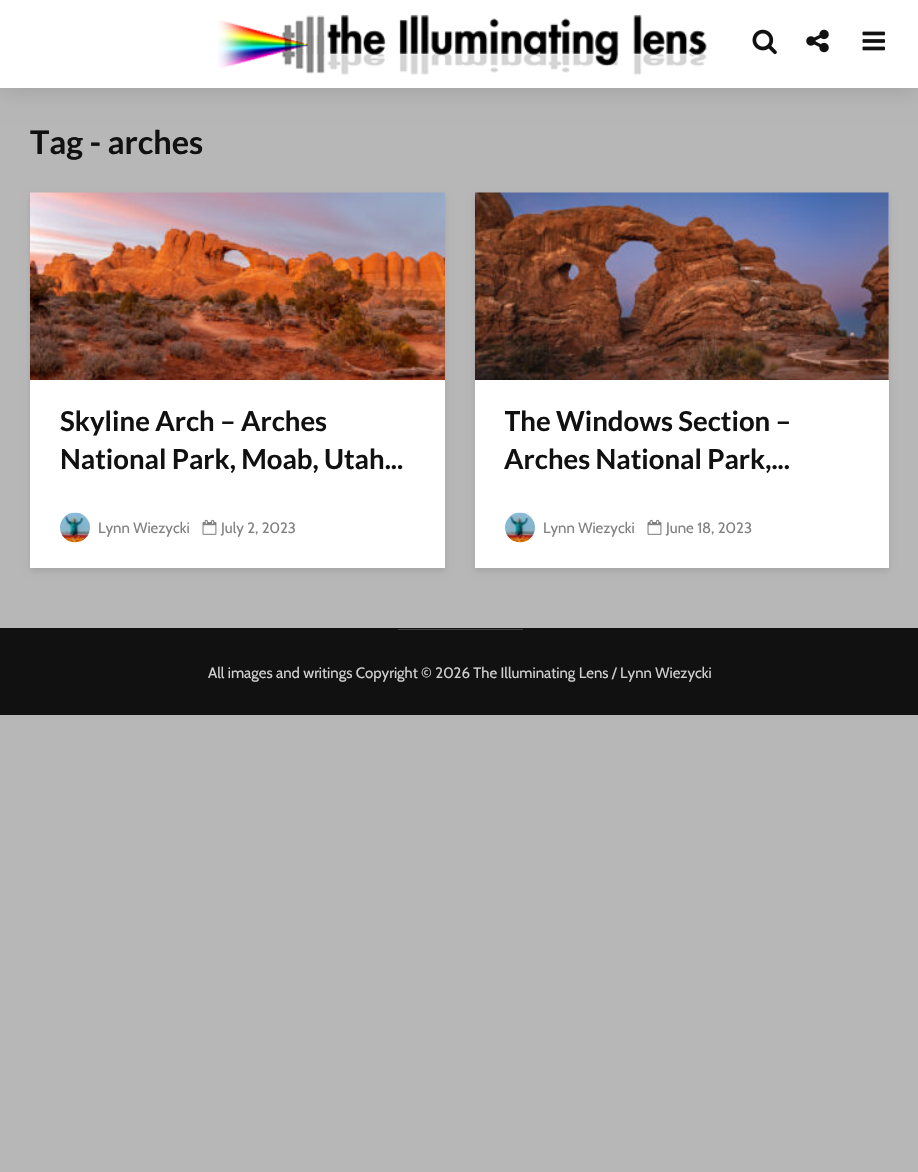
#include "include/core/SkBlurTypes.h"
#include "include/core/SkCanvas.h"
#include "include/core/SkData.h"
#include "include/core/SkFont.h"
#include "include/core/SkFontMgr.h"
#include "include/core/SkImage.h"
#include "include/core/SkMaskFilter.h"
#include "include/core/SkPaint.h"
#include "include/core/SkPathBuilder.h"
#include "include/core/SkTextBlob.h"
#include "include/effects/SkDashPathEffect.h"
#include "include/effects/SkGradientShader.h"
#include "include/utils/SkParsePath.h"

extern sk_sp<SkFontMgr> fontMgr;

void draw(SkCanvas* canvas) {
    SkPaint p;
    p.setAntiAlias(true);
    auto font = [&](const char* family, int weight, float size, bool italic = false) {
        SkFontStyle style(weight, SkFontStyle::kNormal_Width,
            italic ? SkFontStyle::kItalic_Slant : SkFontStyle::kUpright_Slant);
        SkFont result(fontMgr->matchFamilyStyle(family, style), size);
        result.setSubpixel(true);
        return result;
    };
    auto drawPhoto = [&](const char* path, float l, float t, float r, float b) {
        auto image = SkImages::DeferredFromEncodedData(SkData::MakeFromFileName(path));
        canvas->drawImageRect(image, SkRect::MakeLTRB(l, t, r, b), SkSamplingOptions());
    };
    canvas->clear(0xFFB7B7B7);
    p.setColor(0x26000000);
    p.setMaskFilter(SkMaskFilter::MakeBlur(kNormal_SkBlurStyle, 12.5f));
    canvas->drawRect(SkRect::MakeLTRB(0, 0, 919, 88), p);
    p.setMaskFilter(nullptr);
    p.setColor(0xFFFFFFFF);
    canvas->drawRect(SkRect::MakeLTRB(0, 0, 918, 88), p);
    drawPhoto("media/1.png", 218, 14, 707, 75);
    drawPhoto("media/2.png", 752, 29, 777, 55);
    drawPhoto("media/3.png", 806, 29, 829, 53);
    drawPhoto("media/4.png", 862, 31, 885, 51);
    auto font1 = font("Lato", 700, 32.5f);
    p.setColor(0xFF111111);
    canvas->drawString("Tag - arches", 30, 154, font1, p);
    p.setColor(0x1A000101);
    p.setMaskFilter(SkMaskFilter::MakeBlur(kNormal_SkBlurStyle, 3));
    canvas->drawRect(SkRect::MakeLTRB(30, 196, 445, 571), p);
    p.setMaskFilter(nullptr);
    p.setColor(0xFFFFFFFF);
    canvas->drawRect(SkRect::MakeLTRB(30, 380, 445, 568), p);
    drawPhoto("media/5.png", 30, 192, 445, 380);
    auto font2 = font("Lato", 700, 27.5f);
    p.setColor(0xFF111111);
    canvas->drawString("Skyline Arch – Arches", 60, 431, font2, p);
    canvas->drawString("National Park, Moab, Utah...", 60, 469, font2, p);
    drawPhoto("media/6.png", 60, 512, 90, 543);
    auto font3 = font("Cabin", 400, 15);
    p.setColor(0xFF818181);
    canvas->drawString("Lynn Wiezycki", 98, 533, font3, p);
    drawPhoto("media/7.png", 202, 519, 217, 535);
    canvas->drawString("July 2, 2023", 221, 533, font3, p);
    p.setColor(0x1A000101);
    p.setMaskFilter(SkMaskFilter::MakeBlur(kNormal_SkBlurStyle, 3));
    canvas->drawRect(SkRect::MakeLTRB(475, 196, 889, 571), p);
    p.setMaskFilter(nullptr);
    p.setColor(0xFFFFFFFF);
    canvas->drawRect(SkRect::MakeLTRB(475, 193, 889, 568), p);
    drawPhoto("media/8.png", 475, 192, 889, 380);
    canvas->save();
    canvas->clipRect(SkRect::MakeLTRB(505, 403, 859, 509));
    p.setColor(0xFF111111);
    canvas->drawString("The Windows Section –", 504, 431, font2, p);
    canvas->restore();
    canvas->drawString("Arches National Park,...", 504, 469, font2, p);
    drawPhoto("media/9.png", 505, 512, 535, 543);
    p.setColor(0xFF818181);
    canvas->drawString("Lynn Wiezycki", 543, 533, font3, p);
    drawPhoto("media/7.png", 647, 519, 662, 535);
    canvas->drawString("June 18, 2023", 666, 533, font3, p);
    p.setColor(0xFF111111);
    canvas->drawRect(SkRect::MakeLTRB(0, 628, 918, 715), p);
    p.setColor(0xFF414141);
    canvas->drawRect(SkRect::MakeLTRB(398, 629, 523, 630), p);
    p.setColor(0xFFCFCFCF);
    canvas->drawString("All images and writings Copyright © 2026 The Illuminating Lens / Lynn Wiezycki", 208, 678, font3, p);
}
